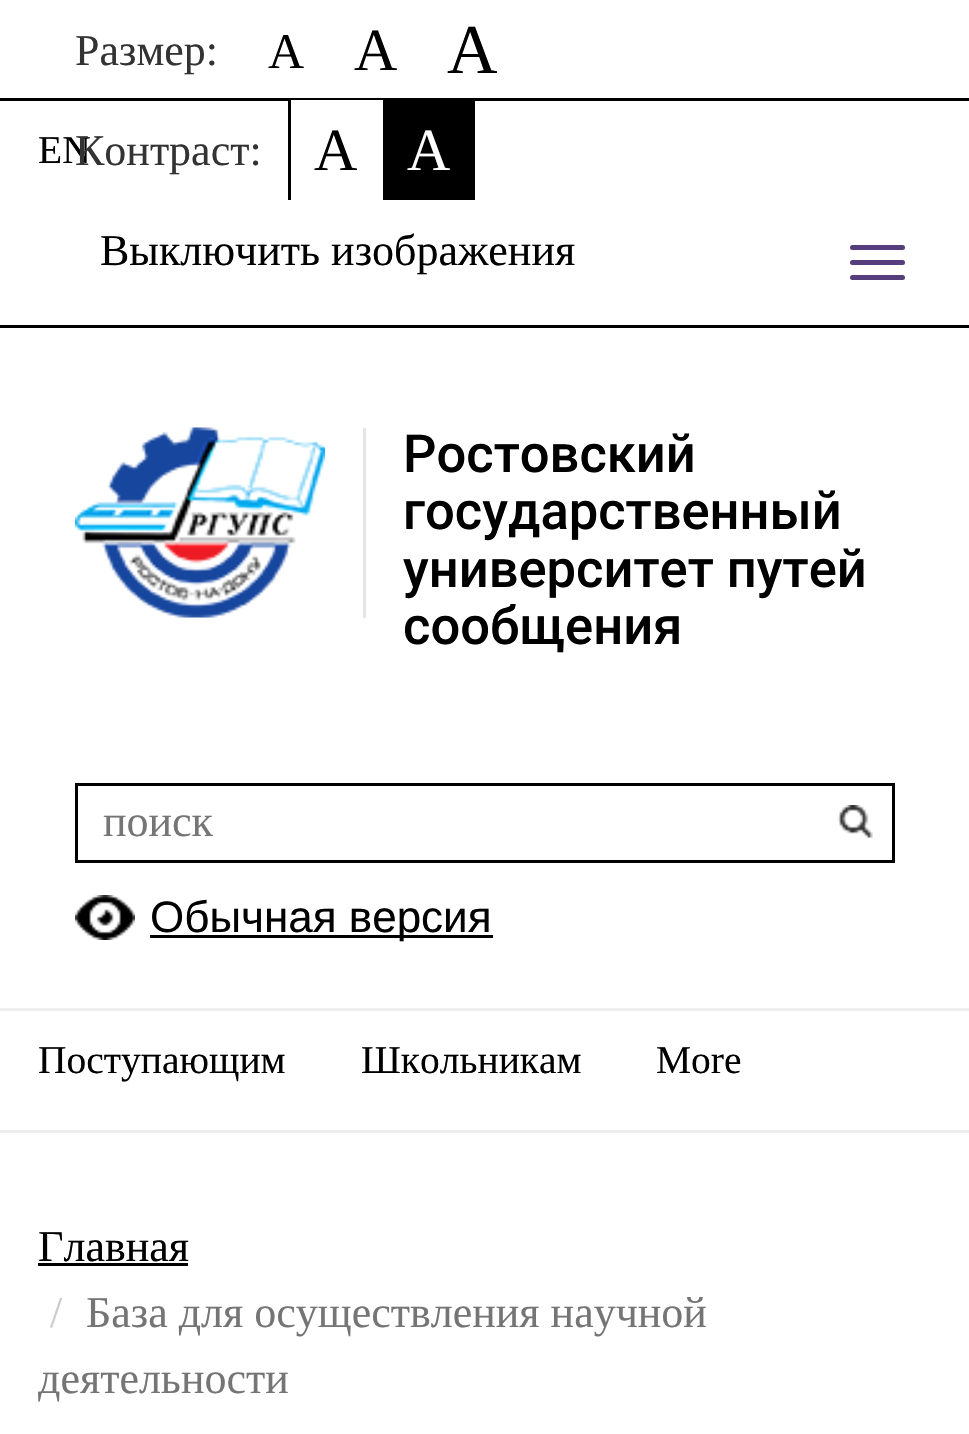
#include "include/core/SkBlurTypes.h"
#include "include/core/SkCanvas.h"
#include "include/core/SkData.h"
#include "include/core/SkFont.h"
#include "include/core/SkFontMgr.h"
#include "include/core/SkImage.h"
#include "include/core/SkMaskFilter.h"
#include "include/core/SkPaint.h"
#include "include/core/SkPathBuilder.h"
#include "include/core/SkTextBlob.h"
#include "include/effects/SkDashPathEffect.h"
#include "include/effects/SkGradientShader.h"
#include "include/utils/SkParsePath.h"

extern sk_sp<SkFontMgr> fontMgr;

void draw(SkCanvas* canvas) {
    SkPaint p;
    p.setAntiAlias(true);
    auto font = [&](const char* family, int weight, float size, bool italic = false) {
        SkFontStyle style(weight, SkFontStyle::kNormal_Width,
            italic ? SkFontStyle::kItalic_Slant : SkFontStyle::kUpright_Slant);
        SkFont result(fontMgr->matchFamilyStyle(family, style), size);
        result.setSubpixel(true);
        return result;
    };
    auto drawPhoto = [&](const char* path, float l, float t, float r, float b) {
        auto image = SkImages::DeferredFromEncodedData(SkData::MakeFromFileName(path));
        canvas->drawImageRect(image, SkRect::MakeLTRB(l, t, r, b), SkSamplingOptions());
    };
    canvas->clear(0xFFFFFFFF);
    p.setColor(0xFF000000);
    canvas->drawRect(SkRect::MakeLTRB(0, 325, 969, 328), p);
    auto font1 = font("Liberation Serif", 400, 39.5f);
    canvas->drawString("EN", 38, 163, font1, p);
    p.setColor(0xFF563D7C);
    canvas->drawRoundRect(SkRect::MakeLTRB(850, 245, 905, 250), 2.5f, 2.5f, p);
    canvas->drawRoundRect(SkRect::MakeLTRB(850, 260, 905, 265), 2.5f, 2.5f, p);
    canvas->drawRoundRect(SkRect::MakeLTRB(850, 275, 905, 280), 2.5f, 2.5f, p);
    p.setColor(0xFF000000);
    canvas->drawRect(SkRect::MakeLTRB(0, 98, 969, 101), p);
    auto font2 = font("Liberation Serif", 400, 44);
    p.setColor(0xFF333333);
    canvas->drawString("Размер:", 75, 65, font2, p);
    auto font3 = font("Liberation Serif", 400, 50);
    p.setColor(0xFF000000);
    canvas->drawString("A", 268, 68, font3, p);
    auto font4 = font("Liberation Serif", 400, 60);
    canvas->drawString("A", 354, 70, font4, p);
    auto font5 = font("Liberation Serif", 400, 70);
    canvas->drawString("A", 447, 73, font5, p);
    p.setColor(0xFF333333);
    canvas->drawString("Контраст:", 75, 165, font2, p);
    p.setColor(0xFFFFFFFF);
    canvas->drawRect(SkRect::MakeLTRB(291, 100, 383, 101), p);
    p.setColor(0xFF000000);
    canvas->drawRect(SkRect::MakeLTRB(288, 100, 291, 200), p);
    canvas->drawString("A", 314, 170, font4, p);
    canvas->drawRect(SkRect::MakeLTRB(383, 101, 475, 200), p);
    p.setColor(0xFFFFFFFF);
    canvas->drawString("A", 407, 170, font4, p);
    p.setColor(0xFF000000);
    canvas->drawString("Выключить изображения", 100, 265, font2, p);
    p.setColor(0xFFE5E5E5);
    canvas->drawRect(SkRect::MakeLTRB(363, 428, 366, 618), p);
    drawPhoto("media/1.png", 75, 427, 325, 618);
    auto font6 = font("Roboto", 500, 52.5f);
    p.setColor(0xFF000000);
    {
        const struct { const char* s; float x, y; } items[] = {
            {"Ростовский", 403, 472},
            {"государственный", 403, 529},
            {"университет путей", 403, 587},
            {"сообщения", 403, 644},
        };
        for (auto [s, x, y] : items) {
            canvas->drawString(s, x, y, font6, p);
        }
    }
    p.setStyle(SkPaint::kStroke_Style);
    p.setStrokeWidth(3);
    canvas->drawRect(SkRect::MakeLTRB(76.5f, 784.5f, 893.5f, 861.5f), p);
    p.setStyle(SkPaint::kFill_Style);
    p.setColor(0xFF757575);
    canvas->drawString("поиск", 103, 836, font2, p);
    drawPhoto("media/2.png", 837, 805, 873, 838);
    drawPhoto("media/3.png", 75, 895, 135, 940);
    p.setColor(0xFF000000);
    canvas->drawRect(SkRect::MakeLTRB(150, 935, 493, 938), p);
    auto font7 = font("Liberation Sans", 400, 44);
    canvas->drawString("Обычная версия", 150, 932, font7, p);
    p.setColor(0xFFEEEEEE);
    canvas->drawRect(SkRect::MakeLTRB(0, 1008, 969, 1011), p);
    canvas->drawRect(SkRect::MakeLTRB(0, 1130, 969, 1133), p);
    p.setColor(0xFF000000);
    {
        const struct { const char* s; float x, y; } items[] = {
            {"Поступающим", 38, 1073},
            {"Школьникам", 361, 1073},
            {"More", 656, 1073},
        };
        for (auto [s, x, y] : items) {
            canvas->drawString(s, x, y, font1, p);
        }
    }
    canvas->drawString("Главная", 38, 1261, font2, p);
    canvas->drawRect(SkRect::MakeLTRB(38, 1263, 188, 1266), p);
    p.setColor(0xFFCCCCCC);
    canvas->drawString("/", 50, 1327, font2, p);
    p.setColor(0xFF757575);
    canvas->drawString("База для осуществления научной", 86, 1327, font2, p);
    canvas->drawString("деятельности", 38, 1393, font2, p);
}
